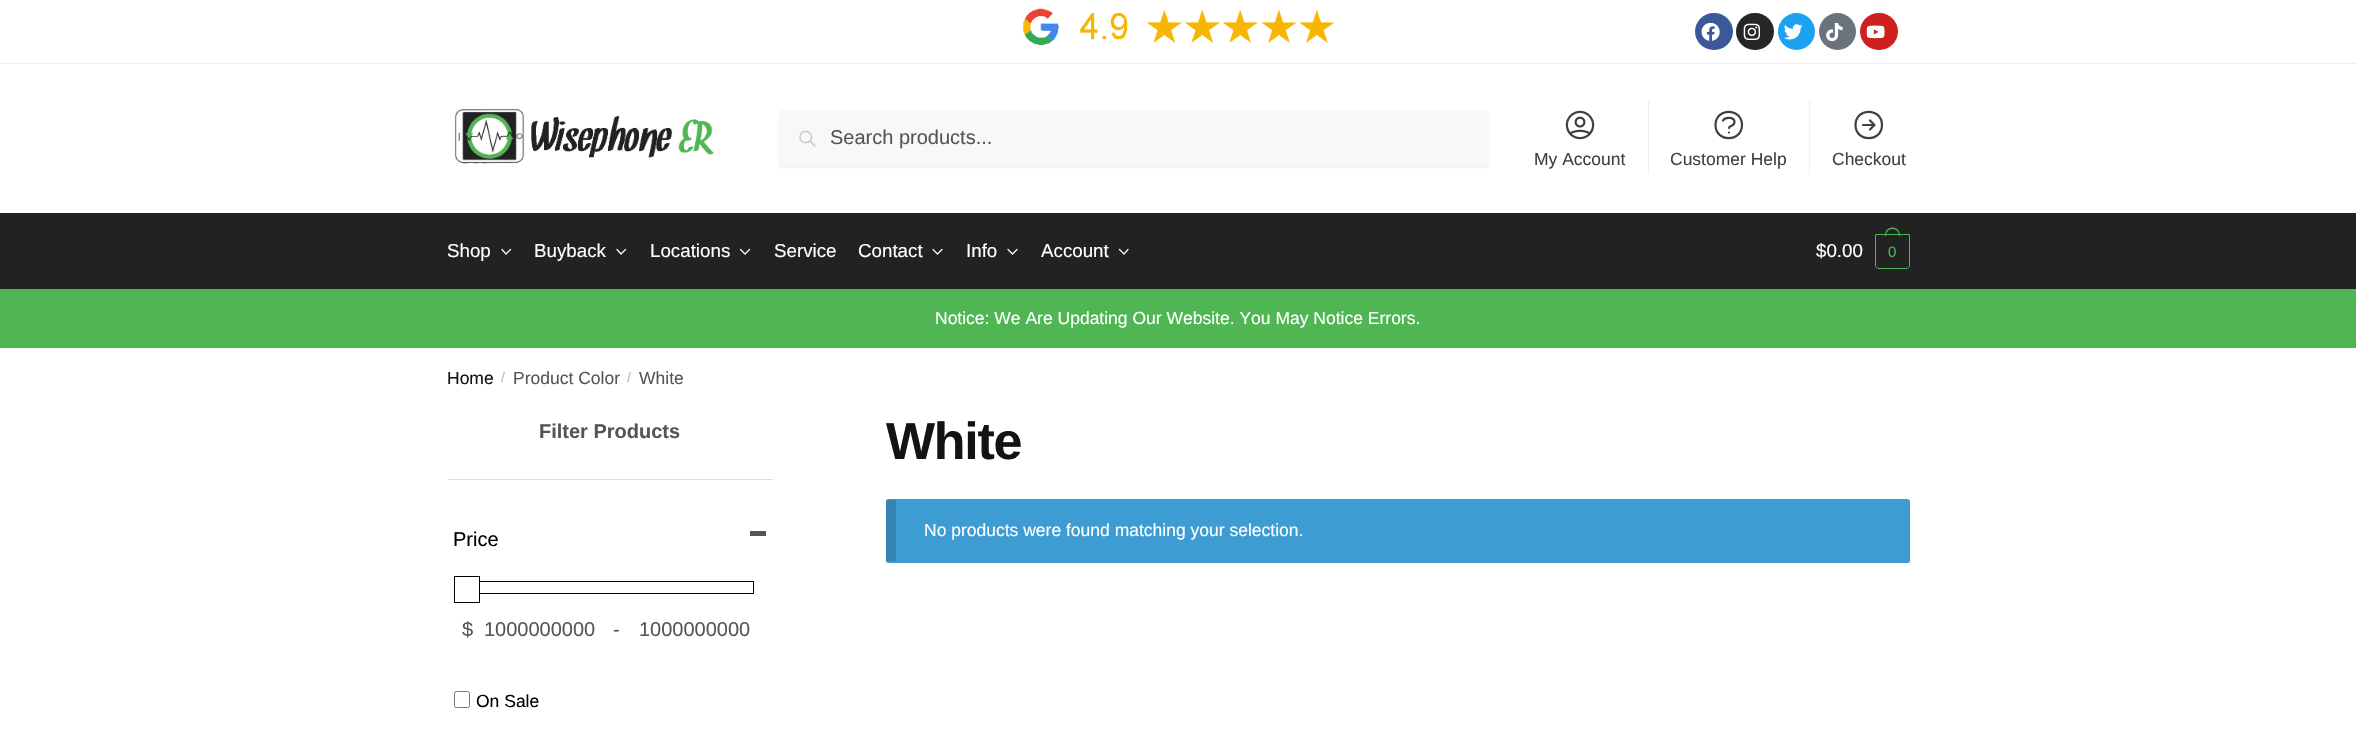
#include "include/core/SkBlurTypes.h"
#include "include/core/SkCanvas.h"
#include "include/core/SkData.h"
#include "include/core/SkFont.h"
#include "include/core/SkFontMgr.h"
#include "include/core/SkImage.h"
#include "include/core/SkMaskFilter.h"
#include "include/core/SkPaint.h"
#include "include/core/SkPathBuilder.h"
#include "include/core/SkTextBlob.h"
#include "include/effects/SkDashPathEffect.h"
#include "include/effects/SkGradientShader.h"
#include "include/utils/SkParsePath.h"

extern sk_sp<SkFontMgr> fontMgr;

void draw(SkCanvas* canvas) {
    SkPaint p;
    p.setAntiAlias(true);
    auto font = [&](const char* family, int weight, float size, bool italic = false) {
        SkFontStyle style(weight, SkFontStyle::kNormal_Width,
            italic ? SkFontStyle::kItalic_Slant : SkFontStyle::kUpright_Slant);
        SkFont result(fontMgr->matchFamilyStyle(family, style), size);
        result.setSubpixel(true);
        return result;
    };
    auto drawTracked = [&](const char* s, float x, float y, const SkFont& font, const SkPaint& ink, float letter, float word) {
        std::vector<SkGlyphID> glyphs(font.countText(s, strlen(s), SkTextEncoding::kUTF8));
        std::vector<float> xs(glyphs.size());
        font.textToGlyphs(s, strlen(s), SkTextEncoding::kUTF8, glyphs);
        font.getXPos(glyphs, xs, x);
        float extra = 0;
        for (size_t i = 0; i < glyphs.size(); i++) {
            xs[i] += extra;
            extra += letter + word * (glyphs[i] == font.unicharToGlyph(' '));
        }
        canvas->drawTextBlob(SkTextBlob::MakeFromPosHGlyphs(glyphs, xs, y, font), 0, 0, ink);
    };
    auto drawPhoto = [&](const char* path, float l, float t, float r, float b) {
        auto image = SkImages::DeferredFromEncodedData(SkData::MakeFromFileName(path));
        canvas->drawImageRect(image, SkRect::MakeLTRB(l, t, r, b), SkSamplingOptions());
    };
    canvas->clear(0xFFFFFFFF);
    p.setColor(0xFFEEEEEE);
    canvas->drawRect(SkRect::MakeLTRB(0, 63, 2356, 64), p);
    drawPhoto("media/1.png", 1022, 8, 1335, 45);
    p.setColor(0xFF3B5998);
    canvas->drawRoundRect(SkRect::MakeLTRB(1695, 13, 1733, 50), 18.5f, 18.5f, p);
    drawPhoto("media/2.png", 1701, 23, 1720, 41);
    p.setColor(0xFF262626);
    canvas->drawRoundRect(SkRect::MakeLTRB(1736, 13, 1774, 50), 18.5f, 18.5f, p);
    drawPhoto("media/3.png", 1743, 23, 1761, 40);
    p.setColor(0xFF1DA1F2);
    canvas->drawCircle(1796.5f, 31.5f, 18.5f, p);
    drawPhoto("media/4.png", 1784, 24, 1803, 40);
    p.setColor(0xFF69727D);
    canvas->drawCircle(1837.5f, 31.5f, 18.5f, p);
    drawPhoto("media/5.png", 1826, 23, 1843, 41);
    p.setColor(0xFFCD201F);
    canvas->drawRoundRect(SkRect::MakeLTRB(1860, 13, 1898, 50), 18.5f, 18.5f, p);
    drawPhoto("media/6.png", 1866, 25, 1885, 39);
    drawPhoto("media/7.png", 454, 109, 714, 164);
    p.setColor(0x0D000000);
    p.setMaskFilter(SkMaskFilter::MakeBlur(kNormal_SkBlurStyle, 1));
    canvas->drawRoundRect(SkRect::MakeLTRB(779, 111, 1489, 168), 5, 5, p);
    p.setMaskFilter(nullptr);
    p.setColor(0xFFF8F8F8);
    canvas->drawRoundRect(SkRect::MakeLTRB(779, 110, 1489, 166), 5, 5, p);
    p.setStyle(SkPaint::kStroke_Style);
    p.setStrokeWidth(1.7f);
    p.setStrokeCap(SkPaint::kRound_Cap);
    p.setStrokeJoin(SkPaint::kRound_Join);
    p.setColor(0xFFCCCCCC);
    canvas->drawPath(SkPathBuilder().moveTo(815, 146).lineTo(810, 141).moveTo(811.5f, 137).cubicTo(811.5f, 144.5f, 800, 144.5f, 800, 137).cubicTo(800, 129.5f, 811.5f, 129.5f, 811.5f, 137).close().detach(), p);
    auto font1 = font("Liberation Sans", 400, 20);
    p.setStyle(SkPaint::kFill_Style);
    p.setColor(0xFF555555);
    canvas->drawString("Search products...", 830, 144, font1, p);
    drawPhoto("media/8.png", 1565, 110, 1595, 140);
    auto font2 = font("Liberation Sans", 400, 17.5f);
    p.setColor(0xFF404040);
    canvas->drawString("My Account", 1534, 165, font2, p);
    p.setColor(0xFFEEEEEE);
    canvas->drawRect(SkRect::MakeLTRB(1648, 101, 1649, 174), p);
    p.setStyle(SkPaint::kStroke_Style);
    p.setStrokeWidth(2.2f);
    p.setColor(0xFF404040);
    canvas->drawPath(SkPathBuilder().moveTo(1723, 120.5f).cubicTo(1725.5f, 116.5f, 1734.5f, 117, 1734.5f, 122).cubicTo(1734.5f, 126.5f, 1729, 125.5f, 1729, 128).moveTo(1729, 132.5f).lineTo(1729, 132.5f).moveTo(1742, 125).cubicTo(1742, 142.5f, 1715.5f, 142.5f, 1715.5f, 125).cubicTo(1715.5f, 107.5f, 1742, 107.5f, 1742, 125).close().detach(), p);
    p.setStyle(SkPaint::kFill_Style);
    canvas->drawString("Customer Help", 1670, 165, font2, p);
    p.setColor(0xFFEEEEEE);
    canvas->drawRect(SkRect::MakeLTRB(1809, 101, 1810, 174), p);
    p.setStyle(SkPaint::kStroke_Style);
    p.setColor(0xFF404040);
    canvas->drawPath(SkPathBuilder().moveTo(1870, 120.5f).lineTo(1874.5f, 125).moveTo(1874.5f, 125).lineTo(1870, 129.5f).moveTo(1874.5f, 125).lineTo(1863, 125).moveTo(1882, 125).cubicTo(1882, 142.5f, 1855.5f, 142.5f, 1855.5f, 125).cubicTo(1855.5f, 107.5f, 1882, 107.5f, 1882, 125).close().detach(), p);
    p.setStyle(SkPaint::kFill_Style);
    canvas->drawString("Checkout", 1832, 165, font2, p);
    p.setColor(0xFF222222);
    canvas->drawRect(SkRect::MakeLTRB(0, 213, 2356, 289), p);
    auto font3 = font("Liberation Sans", 400, 18.75f);
    p.setColor(0xFFFFFFFF);
    canvas->drawString("Shop", 447, 257, font3, p);
    p.setStyle(SkPaint::kStroke_Style);
    p.setStrokeWidth(1.2f);
    canvas->drawPath(SkPathBuilder().moveTo(510.5f, 249.5f).lineTo(506, 254).lineTo(502, 249.5f).detach(), p);
    p.setStyle(SkPaint::kFill_Style);
    canvas->drawString("Buyback", 534, 257, font3, p);
    p.setStyle(SkPaint::kStroke_Style);
    canvas->drawPath(SkPathBuilder().moveTo(625.5f, 249.5f).lineTo(621, 254).lineTo(617, 249.5f).detach(), p);
    p.setStyle(SkPaint::kFill_Style);
    canvas->drawString("Locations", 650, 257, font3, p);
    p.setStyle(SkPaint::kStroke_Style);
    canvas->drawPath(SkPathBuilder().moveTo(749.5f, 249.5f).lineTo(745, 254).lineTo(740.5f, 249.5f).detach(), p);
    p.setStyle(SkPaint::kFill_Style);
    canvas->drawString("Service", 774, 257, font3, p);
    canvas->drawString("Contact", 858, 257, font3, p);
    p.setStyle(SkPaint::kStroke_Style);
    canvas->drawPath(SkPathBuilder().moveTo(942, 249.5f).lineTo(937.5f, 254).lineTo(933, 249.5f).detach(), p);
    p.setStyle(SkPaint::kFill_Style);
    canvas->drawString("Info", 966, 257, font3, p);
    p.setStyle(SkPaint::kStroke_Style);
    canvas->drawPath(SkPathBuilder().moveTo(1017, 249.5f).lineTo(1012.5f, 254).lineTo(1008, 249.5f).detach(), p);
    p.setStyle(SkPaint::kFill_Style);
    canvas->drawString("Account", 1041, 257, font3, p);
    p.setStyle(SkPaint::kStroke_Style);
    canvas->drawPath(SkPathBuilder().moveTo(1128, 249.5f).lineTo(1124, 254).lineTo(1119.5f, 249.5f).detach(), p);
    p.setStyle(SkPaint::kFill_Style);
    canvas->drawString("$0.00", 1816, 257, font3, p);
    p.setStyle(SkPaint::kStroke_Style);
    p.setStrokeWidth(1);
    p.setStrokeCap(SkPaint::kButt_Cap);
    p.setStrokeJoin(SkPaint::kMiter_Join);
    p.setColor(0xFF50B553);
    canvas->drawPath(SkPathBuilder().moveTo(1875.5f, 234.5f).lineTo(1909.5f, 234.5f).lineTo(1909.5f, 265).cubicTo(1909.5f, 267, 1908, 268.5f, 1906, 268.5f).lineTo(1879, 268.5f).cubicTo(1877, 268.5f, 1875.5f, 267, 1875.5f, 265).close().detach(), p);
    p.setStyle(SkPaint::kFill_Style);
    canvas->drawPath(SkPathBuilder(SkPathFillType::kEvenOdd).moveTo(1892.5f, 227.5f).cubicTo(1897.5f, 227.5f, 1900, 231.5f, 1900, 236).lineTo(1885, 236).cubicTo(1885, 231.5f, 1887.5f, 227.5f, 1892.5f, 227.5f).close().moveTo(1892.5f, 229).cubicTo(1897, 229, 1899, 232.5f, 1899, 236).lineTo(1886, 236).cubicTo(1886, 232.5f, 1888, 229, 1892.5f, 229).close().detach(), p);
    auto font4 = font("Liberation Sans", 400, 15);
    drawTracked("0", 1888, 257, font4, p, -1, 0);
    canvas->drawRect(SkRect::MakeLTRB(0, 289, 2356, 348), p);
    p.setColor(0xFFFFFFFF);
    canvas->drawString("Notice: We Are Updating Our Website. You May Notice Errors.", 935, 324, font2, p);
    p.setColor(0xFF131315);
    canvas->drawString("Home", 447, 384, font2, p);
    auto font5 = font("Liberation Sans", 400, 14);
    p.setColor(0xFFBBBBBB);
    canvas->drawString("/", 501, 382, font5, p);
    p.setColor(0xFF555555);
    canvas->drawString("Product Color", 513, 384, font2, p);
    p.setColor(0xFFBBBBBB);
    canvas->drawString("/", 627, 382, font5, p);
    p.setColor(0xFF555555);
    canvas->drawString("White", 639, 384, font2, p);
    p.setColor(0xFFDDDDDD);
    canvas->drawRect(SkRect::MakeLTRB(448, 479, 773, 480), p);
    auto font6 = font("Liberation Sans", 700, 20);
    p.setColor(0xFF555555);
    canvas->drawString("Filter Products", 539, 438, font6, p);
    p.setColor(0xFF000000);
    canvas->drawString("Price", 453, 546, font1, p);
    p.setColor(0xFF555555);
    canvas->drawRect(SkRect::MakeLTRB(750, 531, 766, 536), p);
    p.setStyle(SkPaint::kStroke_Style);
    p.setColor(0xFF000000);
    canvas->drawRect(SkRect::MakeLTRB(466.5f, 581.5f, 753.5f, 593.5f), p);
    p.setStyle(SkPaint::kFill_Style);
    p.setColor(0xFFFFFFFF);
    canvas->drawRect(SkRect::MakeLTRB(466, 581, 479, 594), p);
    p.setStyle(SkPaint::kStroke_Style);
    p.setColor(0xFF000000);
    canvas->drawRect(SkRect::MakeLTRB(454.5f, 576.5f, 479.5f, 602.5f), p);
    p.setStyle(SkPaint::kFill_Style);
    p.setColor(0xFF555555);
    {
        const struct { const char* s; float x, y; } items[] = {
            {"$", 462, 636},
            {"1000000000", 484, 636},
            {"-", 613, 636},
            {"1000000000", 639, 636},
        };
        for (auto [s, x, y] : items) {
            canvas->drawString(s, x, y, font1, p);
        }
    }
    p.setStyle(SkPaint::kStroke_Style);
    p.setColor(0xFF767676);
    canvas->drawRoundRect(SkRect::MakeLTRB(454.5f, 691.5f, 469.5f, 707.5f), 2, 2, p);
    p.setStyle(SkPaint::kFill_Style);
    p.setColor(0xFF000000);
    canvas->drawString("On Sale", 476, 707, font2, p);
    auto font7 = font("Liberation Sans", 700, 52);
    p.setColor(0xFF131315);
    drawTracked("White", 886, 459, font7, p, -1.25f, 0);
    p.setColor(0xFF3D9CD2);
    canvas->drawRoundRect(SkRect::MakeLTRB(886, 499, 1910, 563), 2.5f, 2.5f, p);
    p.setColor(0x26000000);
    canvas->drawRect(SkRect::MakeLTRB(886, 500, 896, 561), p);
    p.setColor(0xFFFFFFFF);
    canvas->drawString("No products were found matching your selection.", 924, 536, font2, p);
}
